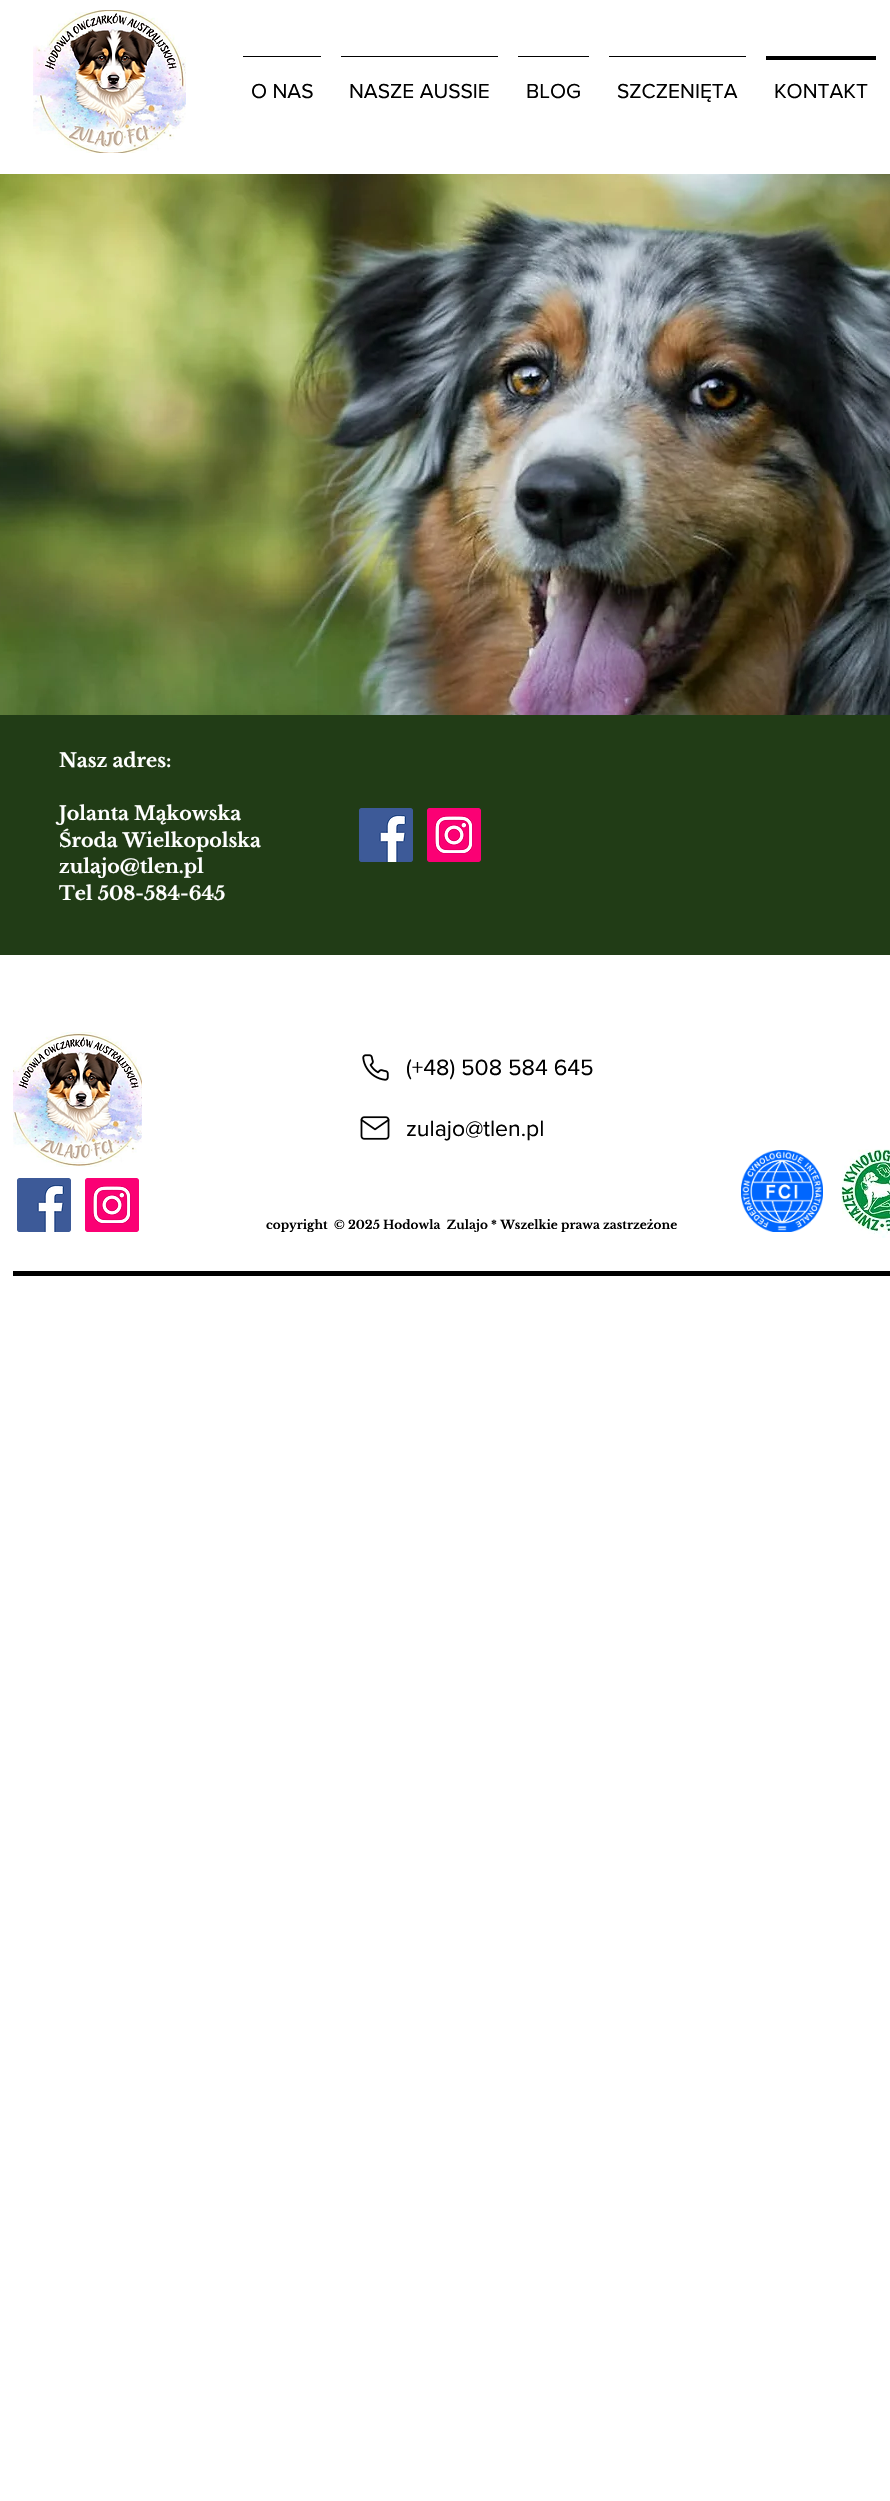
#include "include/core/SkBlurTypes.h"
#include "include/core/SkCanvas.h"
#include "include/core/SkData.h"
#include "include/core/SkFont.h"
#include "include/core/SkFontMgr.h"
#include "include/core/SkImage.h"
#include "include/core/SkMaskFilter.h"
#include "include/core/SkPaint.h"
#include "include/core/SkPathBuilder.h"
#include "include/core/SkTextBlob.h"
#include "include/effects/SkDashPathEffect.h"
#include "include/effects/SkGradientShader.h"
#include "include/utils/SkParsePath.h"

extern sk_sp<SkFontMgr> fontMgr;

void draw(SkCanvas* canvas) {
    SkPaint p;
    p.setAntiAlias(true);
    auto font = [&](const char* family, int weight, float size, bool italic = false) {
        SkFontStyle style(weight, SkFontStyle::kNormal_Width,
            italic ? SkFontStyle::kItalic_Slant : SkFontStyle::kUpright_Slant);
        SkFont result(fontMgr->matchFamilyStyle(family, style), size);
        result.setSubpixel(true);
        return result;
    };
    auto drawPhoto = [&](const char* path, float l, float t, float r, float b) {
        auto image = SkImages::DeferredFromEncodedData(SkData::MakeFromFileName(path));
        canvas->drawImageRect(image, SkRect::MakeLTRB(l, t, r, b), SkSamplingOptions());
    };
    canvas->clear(0xFFFFFFFF);
    drawPhoto("media/1.png", 33, 10, 186, 153);
    p.setColor(0xFF000000);
    canvas->drawRect(SkRect::MakeLTRB(243, 56, 321, 57), p);
    auto font1 = font("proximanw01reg", 400, 21);
    canvas->drawString("O NAS", 251, 98, font1, p);
    canvas->drawRect(SkRect::MakeLTRB(341, 56, 498, 57), p);
    canvas->drawString("NASZE AUSSIE", 349, 98, font1, p);
    canvas->drawRect(SkRect::MakeLTRB(518, 56, 589, 57), p);
    canvas->drawString("BLOG", 526, 98, font1, p);
    canvas->drawRect(SkRect::MakeLTRB(609, 56, 746, 57), p);
    canvas->drawString("SZCZENIĘTA", 617, 98, font1, p);
    canvas->drawRect(SkRect::MakeLTRB(766, 56, 876, 60), p);
    canvas->drawString("KONTAKT", 774, 98, font1, p);
    drawPhoto("media/2.png", 0, 174, 890, 715);
    p.setColor(0xFF213C16);
    canvas->drawRect(SkRect::MakeLTRB(0, 715, 890, 955), p);
    auto font2 = font("Libre Baskerville", 700, 19);
    p.setColor(0xFFFFFFFF);
    {
        const struct { const char* s; float x, y; } items[] = {
            {"Nasz adres:", 59, 767},
            {"Jolanta Mąkowska", 59, 820},
            {"Środa Wielkopolska", 59, 847},
            {"zulajo@tlen.pl", 59, 873},
            {"Tel 508-584-645", 59, 900},
        };
        for (auto [s, x, y] : items) {
            canvas->drawString(s, x, y, font2, p);
        }
    }
    drawPhoto("media/3.png", 359, 808, 413, 862);
    drawPhoto("media/4.png", 427, 808, 481, 862);
    drawPhoto("media/5.png", 13, 1032, 142, 1167);
    drawPhoto("media/6.png", 362, 1054, 389, 1081);
    auto font3 = font("proximanw01reg", 400, 23);
    p.setColor(0xFF000000);
    canvas->drawString("(+48) 508 584 645", 406, 1075, font3, p);
    drawPhoto("media/7.png", 360, 1116, 390, 1140);
    canvas->drawString("zulajo@tlen.pl", 406, 1136, font3, p);
    drawPhoto("media/8.png", 17, 1178, 71, 1232);
    drawPhoto("media/9.png", 85, 1178, 139, 1232);
    auto font4 = font("Libre Baskerville", 700, 12);
    canvas->drawString("copyright  © 2025 Hodowla  Zulajo * Wszelkie prawa zastrzeżone", 266, 1229, font4, p);
    drawPhoto("media/10.png", 741, 1150, 823, 1232);
    drawPhoto("media/11.png", 841, 1149, 890, 1238);
    canvas->drawRect(SkRect::MakeLTRB(13, 1271, 890, 1276), p);
}
